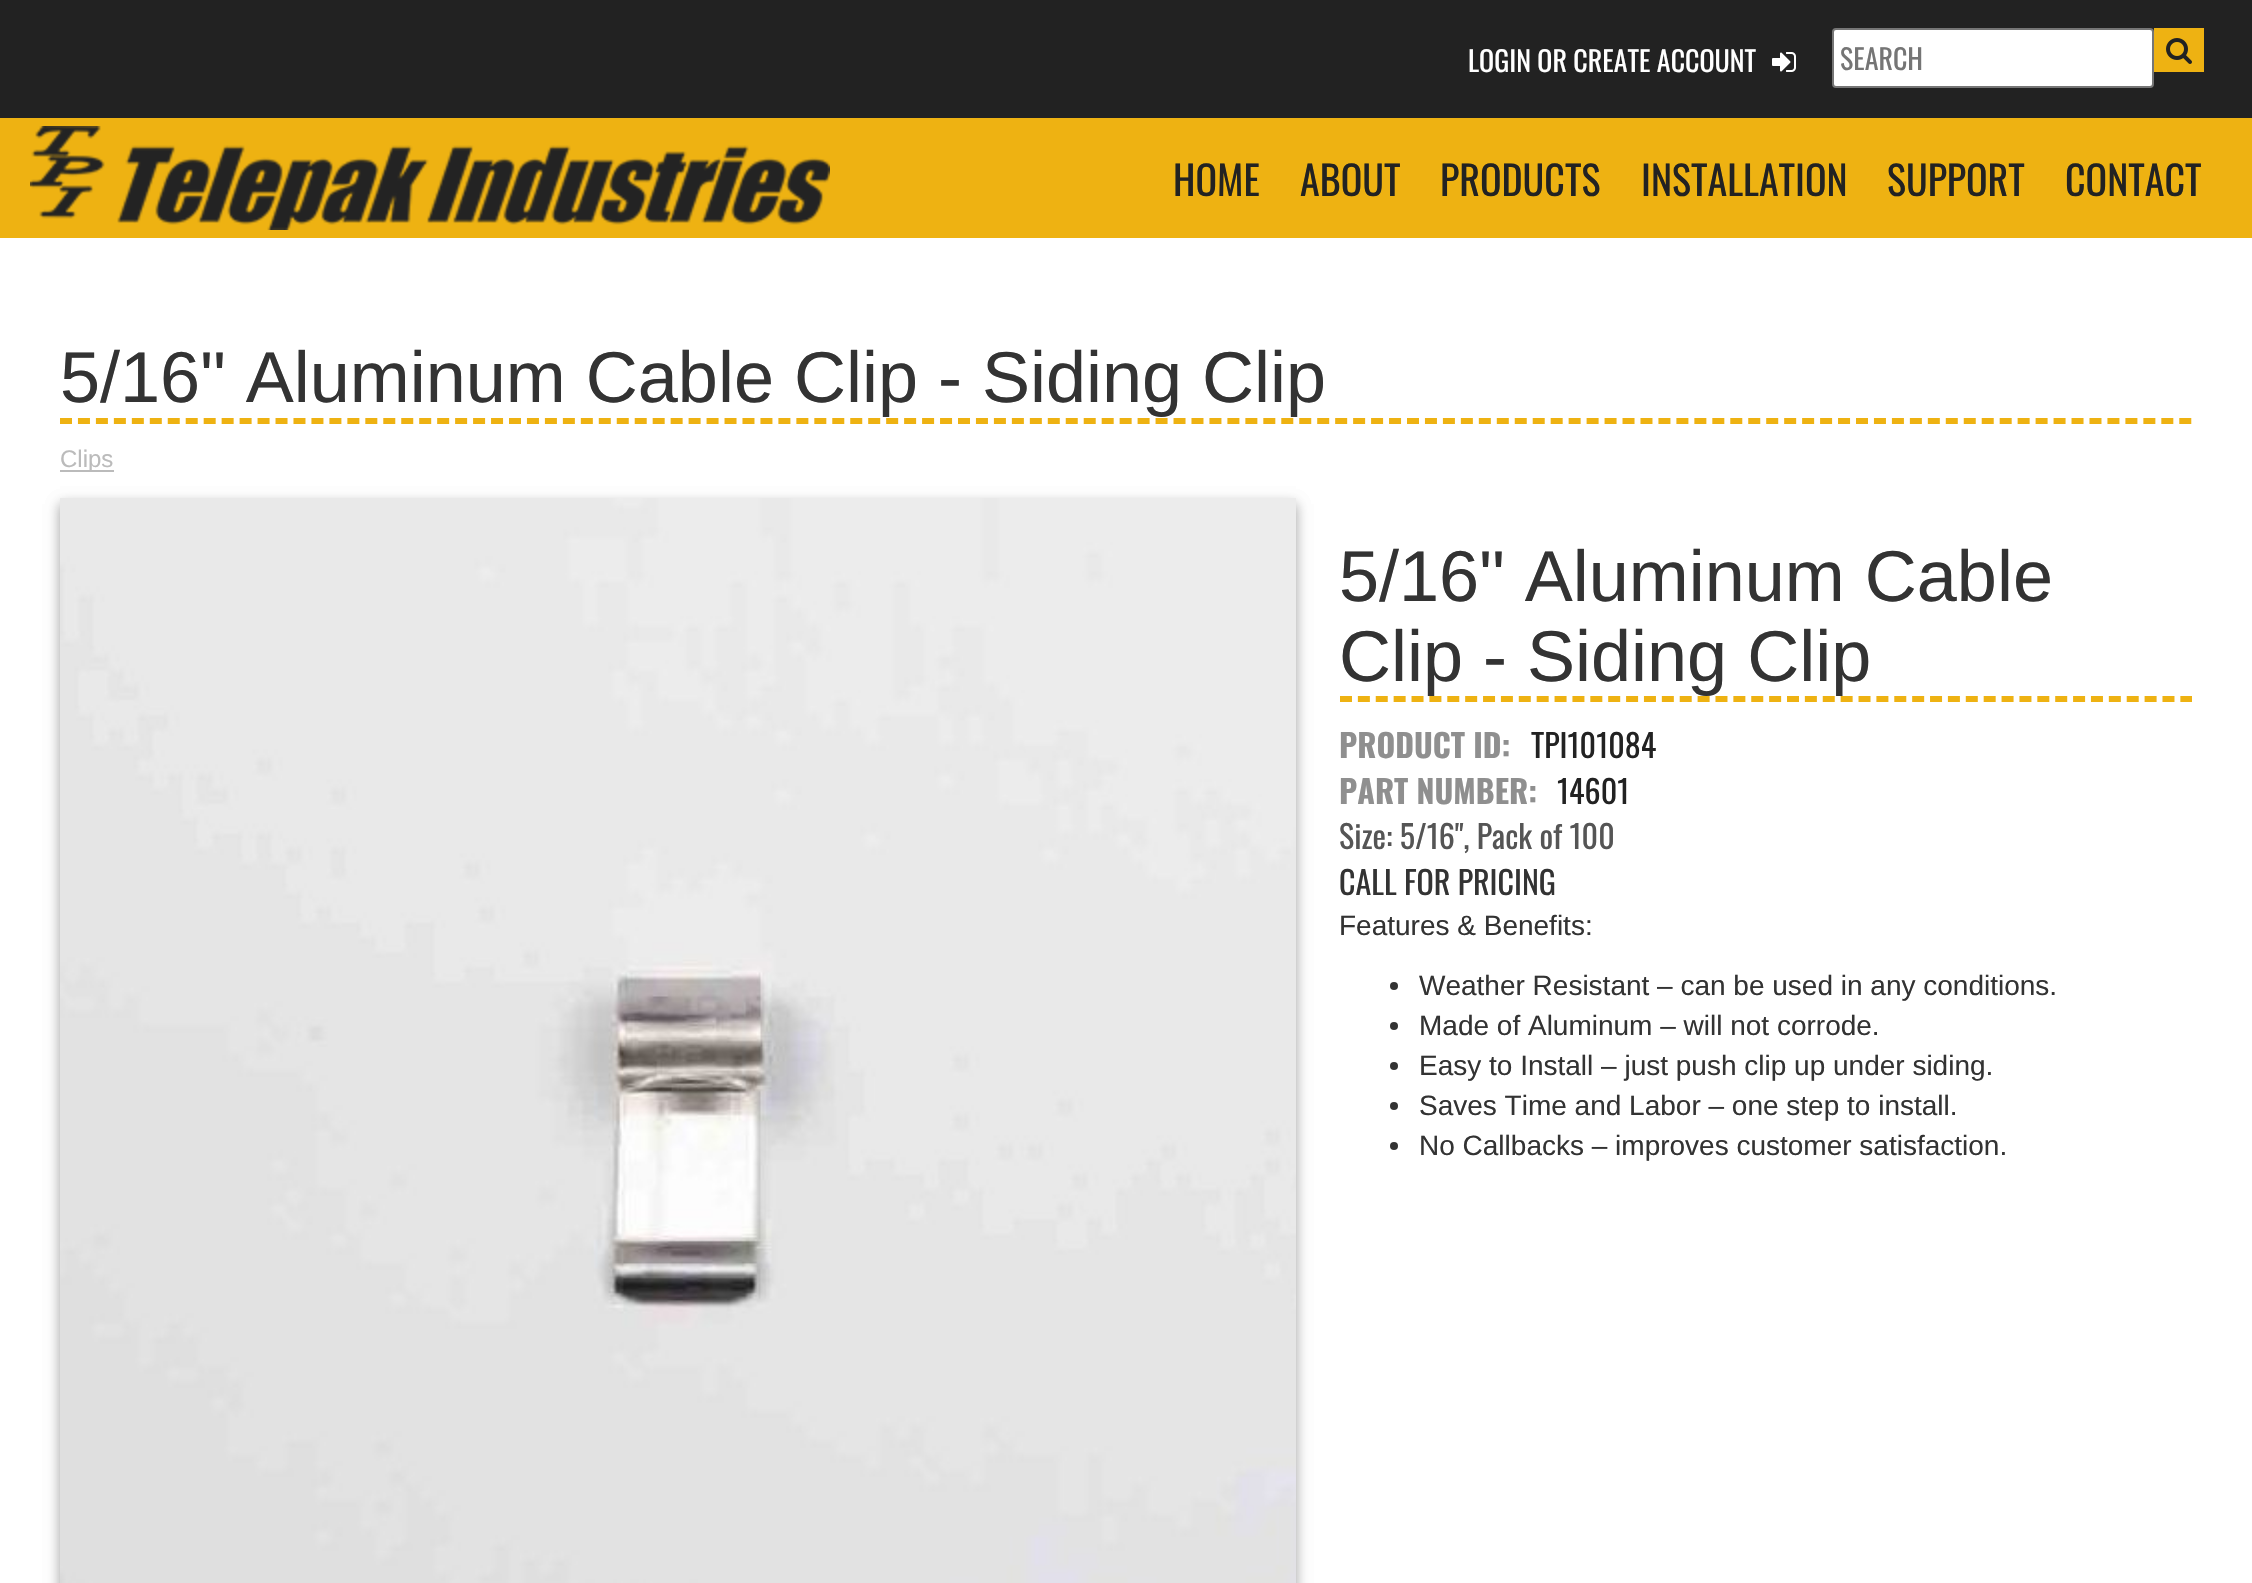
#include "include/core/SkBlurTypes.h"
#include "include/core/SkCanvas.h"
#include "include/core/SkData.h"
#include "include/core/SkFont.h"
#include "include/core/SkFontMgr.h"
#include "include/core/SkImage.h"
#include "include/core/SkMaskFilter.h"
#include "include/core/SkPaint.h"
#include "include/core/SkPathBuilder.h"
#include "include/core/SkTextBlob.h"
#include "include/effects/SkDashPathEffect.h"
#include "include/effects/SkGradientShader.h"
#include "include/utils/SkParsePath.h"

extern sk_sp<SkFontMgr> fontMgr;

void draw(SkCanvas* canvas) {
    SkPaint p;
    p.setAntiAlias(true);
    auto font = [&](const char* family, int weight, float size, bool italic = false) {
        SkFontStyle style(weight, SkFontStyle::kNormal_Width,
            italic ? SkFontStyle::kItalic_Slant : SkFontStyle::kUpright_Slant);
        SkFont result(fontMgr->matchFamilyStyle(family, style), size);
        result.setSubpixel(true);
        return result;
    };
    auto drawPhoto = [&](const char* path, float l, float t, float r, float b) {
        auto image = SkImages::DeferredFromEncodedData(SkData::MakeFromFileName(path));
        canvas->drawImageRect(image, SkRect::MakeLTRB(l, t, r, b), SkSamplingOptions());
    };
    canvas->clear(0xFFFFFFFF);
    p.setColor(0xFF222222);
    canvas->drawRect(SkRect::MakeLTRB(0, 0, 2252, 118), p);
    auto font1 = font("Oswald", 400, 28);
    p.setColor(0xFFFFFFFF);
    canvas->drawString("LOGIN OR CREATE ACCOUNT", 1468, 72, font1, p);
    drawPhoto("media/1.png", 1772, 52, 1796, 72);
    canvas->drawRoundRect(SkRect::MakeLTRB(1833, 29, 2153, 87), 3, 3, p);
    p.setStyle(SkPaint::kStroke_Style);
    p.setStrokeWidth(2);
    p.setColor(0xFF767676);
    canvas->drawRoundRect(SkRect::MakeLTRB(1833, 29, 2153, 87), 3, 3, p);
    p.setStyle(SkPaint::kFill_Style);
    p.setColor(0xFF757575);
    canvas->drawString("SEARCH", 1840, 70, font1, p);
    p.setColor(0xFFEEB212);
    canvas->drawRect(SkRect::MakeLTRB(2154, 28, 2204, 72), p);
    drawPhoto("media/2.png", 2166, 38, 2192, 64);
    canvas->drawRect(SkRect::MakeLTRB(0, 118, 2252, 238), p);
    drawPhoto("media/3.png", 30, 126, 830, 230);
    auto font2 = font("Oswald", 400, 40);
    p.setColor(0xFF222222);
    {
        const struct { const char* s; float x, y; } items[] = {
            {"HOME", 1173, 196},
            {"ABOUT", 1300, 196},
            {"PRODUCTS", 1440, 196},
            {"INSTALLATION", 1641, 196},
            {"SUPPORT", 1887, 196},
            {"CONTACT", 2065, 196},
        };
        for (auto [s, x, y] : items) {
            canvas->drawString(s, x, y, font2, p);
        }
    }
    p.setStyle(SkPaint::kStroke_Style);
    p.setStrokeWidth(6);
    p.setColor(0xFFEEB212);
    p.setPathEffect(SkDashPathEffect::Make({{12, 5.96f}}, 0));
    canvas->drawPath(SkPathBuilder().moveTo(60, 421).lineTo(2192, 421).detach(), p);
    p.setPathEffect(nullptr);
    auto font3 = font("Liberation Sans", 400, 72);
    p.setStyle(SkPaint::kFill_Style);
    p.setColor(0xFF333333);
    canvas->drawString("5/16\" Aluminum Cable Clip - Siding Clip", 60, 402, font3, p);
    p.setColor(0xFFBBBBBB);
    canvas->drawRect(SkRect::MakeLTRB(60, 470, 114, 472), p);
    auto font4 = font("Liberation Sans", 400, 24);
    canvas->drawString("Clips", 60, 467, font4, p);
    p.setColor(0x3B000000);
    p.setMaskFilter(SkMaskFilter::MakeBlur(kNormal_SkBlurStyle, 6));
    canvas->drawRect(SkRect::MakeLTRB(60, 504, 1296, 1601), p);
    p.setMaskFilter(nullptr);
    p.setColor(0x29000000);
    p.setMaskFilter(SkMaskFilter::MakeBlur(kNormal_SkBlurStyle, 6));
    canvas->drawRect(SkRect::MakeLTRB(60, 504, 1296, 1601), p);
    p.setMaskFilter(nullptr);
    drawPhoto("media/4.png", 60, 498, 1296, 1583);
    p.setStyle(SkPaint::kStroke_Style);
    p.setColor(0xFFEEB212);
    p.setPathEffect(SkDashPathEffect::Make({{12, 5.88f}}, 0));
    canvas->drawPath(SkPathBuilder().moveTo(1340, 699).lineTo(2192, 699).detach(), p);
    p.setPathEffect(nullptr);
    p.setStyle(SkPaint::kFill_Style);
    p.setColor(0xFF333333);
    canvas->drawString("5/16\" Aluminum Cable", 1339, 601, font3, p);
    canvas->drawString("Clip - Siding Clip", 1339, 681, font3, p);
    auto font5 = font("Oswald", 700, 32);
    p.setColor(0xFF8F8F8F);
    canvas->drawString("PRODUCT ID:", 1339, 758, font5, p);
    auto font6 = font("Oswald", 400, 32);
    p.setColor(0xFF222222);
    canvas->drawString("TPI101084", 1531, 758, font6, p);
    p.setColor(0xFF8F8F8F);
    canvas->drawString("PART NUMBER:", 1339, 804, font5, p);
    p.setColor(0xFF222222);
    canvas->drawString("14601", 1557, 804, font6, p);
    p.setColor(0xFF555555);
    canvas->drawString("Size: 5/16\", Pack of 100", 1339, 849, font6, p);
    p.setColor(0xFF333333);
    canvas->drawString("CALL FOR PRICING", 1339, 895, font6, p);
    auto font7 = font("Liberation Sans", 400, 28);
    canvas->drawString("Features & Benefits:", 1339, 935, font7, p);
    canvas->drawCircle(1394, 986, 4, p);
    canvas->drawString("Weather Resistant – can be used in any conditions.", 1419, 995, font7, p);
    canvas->drawCircle(1394, 1026, 4, p);
    canvas->drawString("Made of Aluminum – will not corrode.", 1419, 1035, font7, p);
    canvas->drawCircle(1394, 1066, 4, p);
    canvas->drawString("Easy to Install – just push clip up under siding.", 1419, 1075, font7, p);
    canvas->drawCircle(1394, 1106, 4, p);
    canvas->drawString("Saves Time and Labor – one step to install.", 1419, 1115, font7, p);
    canvas->drawCircle(1394, 1146, 4, p);
    canvas->drawString("No Callbacks – improves customer satisfaction.", 1419, 1155, font7, p);
}
